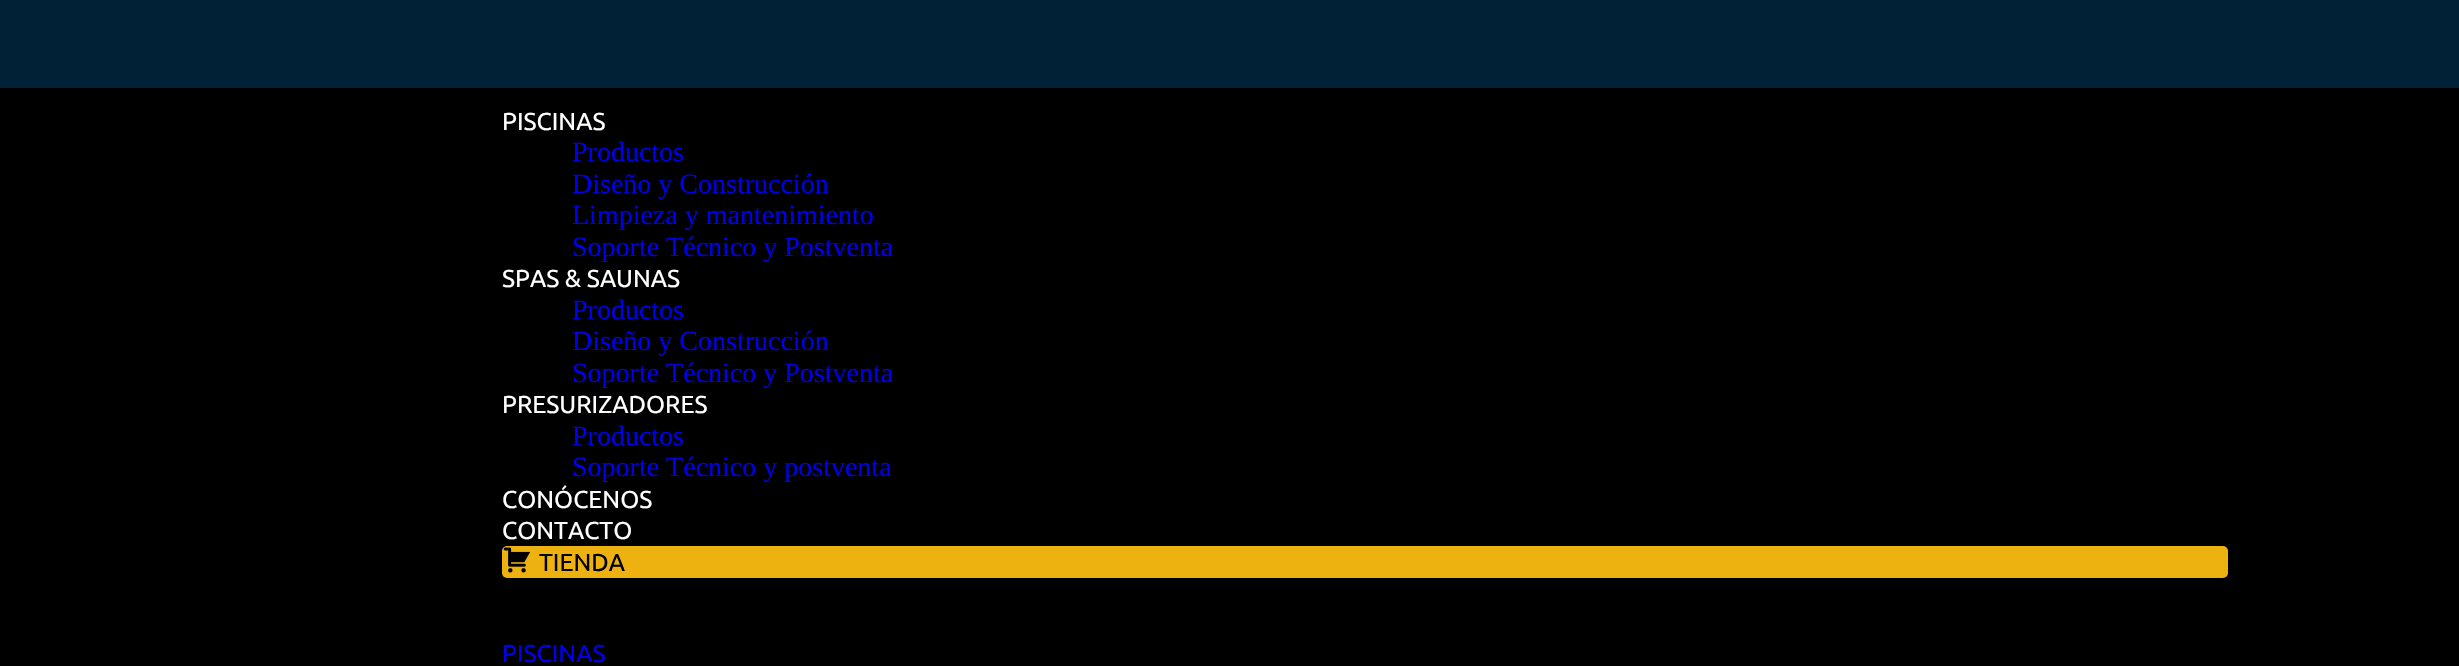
#include "include/core/SkBlurTypes.h"
#include "include/core/SkCanvas.h"
#include "include/core/SkData.h"
#include "include/core/SkFont.h"
#include "include/core/SkFontMgr.h"
#include "include/core/SkImage.h"
#include "include/core/SkMaskFilter.h"
#include "include/core/SkPaint.h"
#include "include/core/SkPathBuilder.h"
#include "include/core/SkTextBlob.h"
#include "include/effects/SkDashPathEffect.h"
#include "include/effects/SkGradientShader.h"
#include "include/utils/SkParsePath.h"

extern sk_sp<SkFontMgr> fontMgr;

void draw(SkCanvas* canvas) {
    SkPaint p;
    p.setAntiAlias(true);
    auto font = [&](const char* family, int weight, float size, bool italic = false) {
        SkFontStyle style(weight, SkFontStyle::kNormal_Width,
            italic ? SkFontStyle::kItalic_Slant : SkFontStyle::kUpright_Slant);
        SkFont result(fontMgr->matchFamilyStyle(family, style), size);
        result.setSubpixel(true);
        return result;
    };
    auto drawPhoto = [&](const char* path, float l, float t, float r, float b) {
        auto image = SkImages::DeferredFromEncodedData(SkData::MakeFromFileName(path));
        canvas->drawImageRect(image, SkRect::MakeLTRB(l, t, r, b), SkSamplingOptions());
    };
    canvas->clear(0xFF000000);
    p.setColor(0xFF002136);
    canvas->drawRect(SkRect::MakeLTRB(0, 0, 2459, 88), p);
    auto font1 = font("Ubuntu", 400, 24.5f);
    p.setColor(0xFFFFFFFF);
    canvas->drawString("PISCINAS", 502, 130, font1, p);
    auto font2 = font("Liberation Serif", 400, 28);
    p.setColor(0xFF0000EE);
    {
        const struct { const char* s; float x, y; } items[] = {
            {"Productos", 572, 161},
            {"Diseño y Construcción", 572, 193},
            {"Limpieza y mantenimiento", 572, 224},
            {"Soporte Técnico y Postventa", 572, 256},
        };
        for (auto [s, x, y] : items) {
            canvas->drawString(s, x, y, font2, p);
        }
    }
    p.setColor(0xFFFFFFFF);
    canvas->drawString("SPAS & SAUNAS", 502, 287, font1, p);
    p.setColor(0xFF0000EE);
    {
        const struct { const char* s; float x, y; } items[] = {
            {"Productos", 572, 319},
            {"Diseño y Construcción", 572, 350},
            {"Soporte Técnico y Postventa", 572, 382},
        };
        for (auto [s, x, y] : items) {
            canvas->drawString(s, x, y, font2, p);
        }
    }
    p.setColor(0xFFFFFFFF);
    canvas->drawString("PRESURIZADORES", 502, 413, font1, p);
    p.setColor(0xFF0000EE);
    canvas->drawString("Productos", 572, 445, font2, p);
    canvas->drawString("Soporte Técnico y postventa", 572, 476, font2, p);
    p.setColor(0xFFFFFFFF);
    canvas->drawString("CONÓCENOS", 502, 508, font1, p);
    canvas->drawString("CONTACTO", 502, 539, font1, p);
    p.setColor(0xFFEDB20F);
    canvas->drawRoundRect(SkRect::MakeLTRB(502, 546, 2228, 578), 5, 5, p);
    drawPhoto("media/1.png", 503, 547, 530, 573);
    p.setColor(0xFF000000);
    canvas->drawString("TIENDA", 539, 571, font1, p);
    p.setColor(0xFF0000EE);
    canvas->drawString("PISCINAS", 502, 662, font1, p);
}
